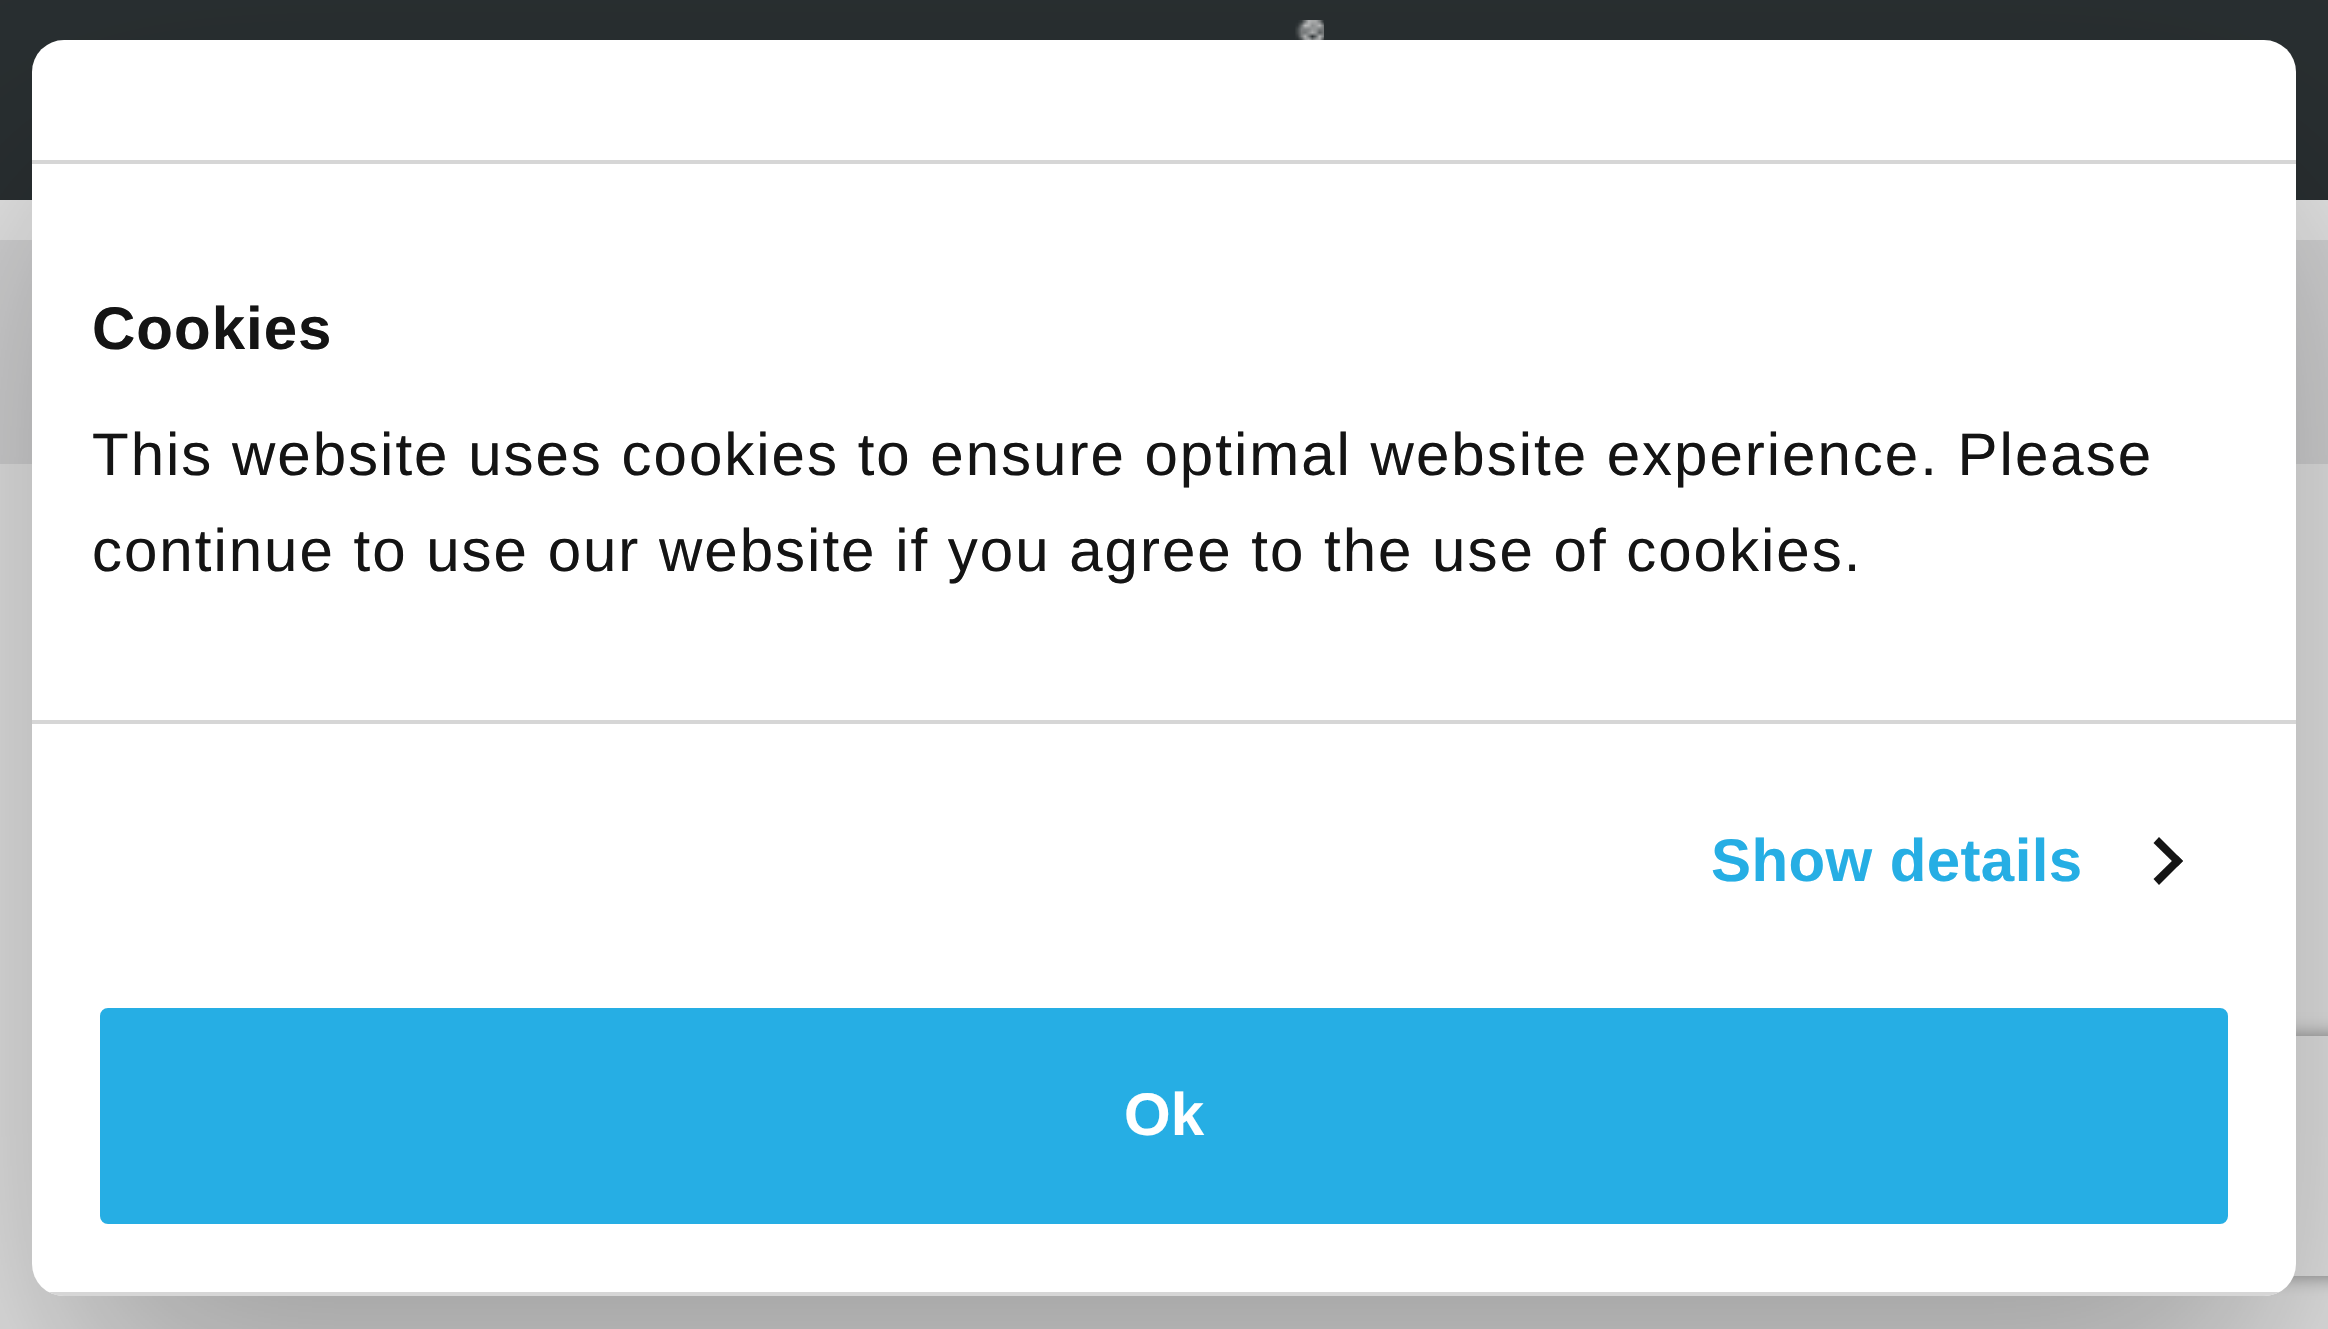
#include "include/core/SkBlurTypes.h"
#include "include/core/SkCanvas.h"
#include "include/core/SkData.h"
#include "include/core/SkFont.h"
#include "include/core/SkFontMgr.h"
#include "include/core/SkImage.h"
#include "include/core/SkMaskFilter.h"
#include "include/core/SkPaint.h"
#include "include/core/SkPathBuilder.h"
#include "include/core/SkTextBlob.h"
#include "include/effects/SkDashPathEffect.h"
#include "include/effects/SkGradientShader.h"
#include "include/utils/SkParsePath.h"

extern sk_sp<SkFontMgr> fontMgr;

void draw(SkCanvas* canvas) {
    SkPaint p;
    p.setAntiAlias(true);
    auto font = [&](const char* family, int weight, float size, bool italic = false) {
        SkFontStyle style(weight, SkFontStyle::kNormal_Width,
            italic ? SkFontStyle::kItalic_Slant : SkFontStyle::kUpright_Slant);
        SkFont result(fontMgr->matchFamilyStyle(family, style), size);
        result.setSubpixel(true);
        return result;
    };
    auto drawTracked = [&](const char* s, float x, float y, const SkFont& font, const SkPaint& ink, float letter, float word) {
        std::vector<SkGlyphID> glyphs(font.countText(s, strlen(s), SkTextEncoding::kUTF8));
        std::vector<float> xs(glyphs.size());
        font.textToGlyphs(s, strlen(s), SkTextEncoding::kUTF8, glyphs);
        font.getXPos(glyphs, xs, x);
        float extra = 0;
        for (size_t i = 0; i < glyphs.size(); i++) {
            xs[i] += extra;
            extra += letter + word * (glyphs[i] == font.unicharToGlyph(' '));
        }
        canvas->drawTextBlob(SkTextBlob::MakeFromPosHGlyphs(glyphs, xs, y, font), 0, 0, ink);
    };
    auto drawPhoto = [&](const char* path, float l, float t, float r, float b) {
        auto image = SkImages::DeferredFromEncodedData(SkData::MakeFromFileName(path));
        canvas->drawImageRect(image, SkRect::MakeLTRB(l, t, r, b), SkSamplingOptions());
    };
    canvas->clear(0xFFE6E6E6);
    p.setColor(0xFF292F31);
    canvas->drawRect(SkRect::MakeLTRB(0, 0, 2328, 200), p);
    drawPhoto("media/1.png", 1295, 20, 1324, 40);
    p.setColor(0xFFD4D4D5);
    canvas->drawRect(SkRect::MakeLTRB(0, 240, 2328, 464), p);
    p.setColor(0x4D000000);
    p.setMaskFilter(SkMaskFilter::MakeBlur(kNormal_SkBlurStyle, 136));
    canvas->drawRoundRect(SkRect::MakeLTRB(32, 168, 2296, 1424), 32, 32, p);
    p.setMaskFilter(nullptr);
    canvas->save();
    canvas->clipPath(SkPathBuilder(SkPathFillType::kEvenOdd).moveTo(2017, 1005).lineTo(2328, 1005).lineTo(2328, 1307).lineTo(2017, 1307).close().moveTo(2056, 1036).lineTo(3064, 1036).cubicTo(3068.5f, 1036, 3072, 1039.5f, 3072, 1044).lineTo(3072, 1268).cubicTo(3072, 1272.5f, 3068.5f, 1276, 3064, 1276).lineTo(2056, 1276).cubicTo(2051.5f, 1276, 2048, 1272.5f, 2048, 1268).lineTo(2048, 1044).cubicTo(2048, 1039.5f, 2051.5f, 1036, 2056, 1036).close().detach(), true);
    p.setColor(0xFF737373);
    p.setMaskFilter(SkMaskFilter::MakeBlur(kNormal_SkBlurStyle, 10));
    canvas->drawRoundRect(SkRect::MakeLTRB(2048, 1036, 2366, 1276), 8, 8, p);
    p.setMaskFilter(nullptr);
    canvas->restore();
    p.setColor(0xFFFFFFFF);
    canvas->drawRoundRect(SkRect::MakeLTRB(32, 40, 2296, 1296), 32, 32, p);
    p.setColor(0xFFD6D6D6);
    canvas->drawRect(SkRect::MakeLTRB(32, 160, 2296, 164), p);
    canvas->drawRect(SkRect::MakeLTRB(32, 720, 2296, 724), p);
    auto font1 = font("Liberation Sans", 700, 60);
    p.setColor(0xFF141414);
    drawTracked("Cookies", 92, 349, font1, p, 1, 0);
    auto font2 = font("Liberation Sans", 400, 60);
    drawTracked("This website uses cookies to ensure optimal website experience. Please", 92, 475, font2, p, 2, 0);
    drawTracked("continue to use our website if you agree to the use of cookies.", 92, 571, font2, p, 2, 0);
    p.setColor(0xFF26AEE4);
    drawTracked("Show details", 1711, 881, font1, p, 0.4f, 0);
    p.setColor(0xFF141414);
    canvas->drawPath(SkPathBuilder().moveTo(2159, 837).lineTo(2183, 861).lineTo(2177.5f, 866.5f).lineTo(2153.5f, 843).close().detach(), p);
    canvas->drawPath(SkPathBuilder().moveTo(2177.5f, 855.5f).lineTo(2183, 861).lineTo(2159, 885).lineTo(2153.5f, 879).close().detach(), p);
    canvas->save();
    canvas->clipPath(SkPathBuilder().moveTo(64, 40).lineTo(2264, 40).cubicTo(2281.5f, 40, 2296, 54.5f, 2296, 72).lineTo(2296, 1264).cubicTo(2296, 1281.5f, 2281.5f, 1296, 2264, 1296).lineTo(64, 1296).cubicTo(46.5f, 1296, 32, 1281.5f, 32, 1264).lineTo(32, 72).cubicTo(32, 54.5f, 46.5f, 40, 64, 40).close().detach(), true);
    p.setColor(0xFFD6D6D6);
    canvas->drawRect(SkRect::MakeLTRB(48, 1292, 2280, 1296), p);
    canvas->restore();
    p.setColor(0xFF26AEE4);
    canvas->drawRoundRect(SkRect::MakeLTRB(96, 1004, 2232, 1228), 12, 12, p);
    p.setStyle(SkPaint::kStroke_Style);
    p.setStrokeWidth(8);
    p.setColor(0xFFFFFFFF);
    canvas->drawRoundRect(SkRect::MakeLTRB(96, 1004, 2232, 1228), 12, 12, p);
    p.setStyle(SkPaint::kFill_Style);
    canvas->drawString("Ok", 1124, 1135, font1, p);
}
